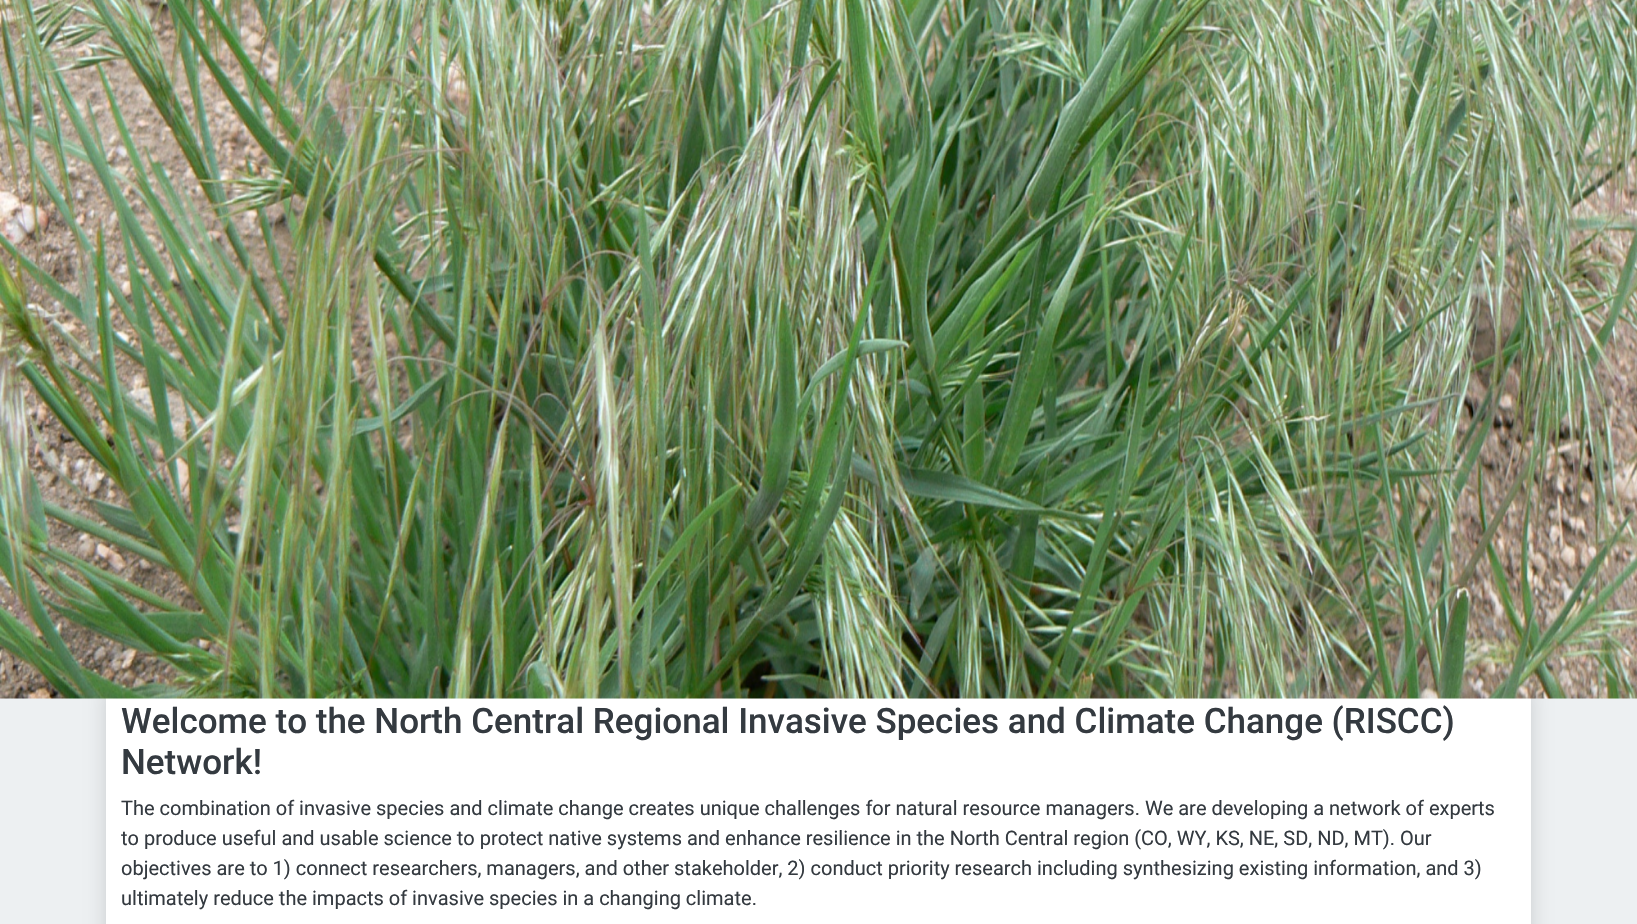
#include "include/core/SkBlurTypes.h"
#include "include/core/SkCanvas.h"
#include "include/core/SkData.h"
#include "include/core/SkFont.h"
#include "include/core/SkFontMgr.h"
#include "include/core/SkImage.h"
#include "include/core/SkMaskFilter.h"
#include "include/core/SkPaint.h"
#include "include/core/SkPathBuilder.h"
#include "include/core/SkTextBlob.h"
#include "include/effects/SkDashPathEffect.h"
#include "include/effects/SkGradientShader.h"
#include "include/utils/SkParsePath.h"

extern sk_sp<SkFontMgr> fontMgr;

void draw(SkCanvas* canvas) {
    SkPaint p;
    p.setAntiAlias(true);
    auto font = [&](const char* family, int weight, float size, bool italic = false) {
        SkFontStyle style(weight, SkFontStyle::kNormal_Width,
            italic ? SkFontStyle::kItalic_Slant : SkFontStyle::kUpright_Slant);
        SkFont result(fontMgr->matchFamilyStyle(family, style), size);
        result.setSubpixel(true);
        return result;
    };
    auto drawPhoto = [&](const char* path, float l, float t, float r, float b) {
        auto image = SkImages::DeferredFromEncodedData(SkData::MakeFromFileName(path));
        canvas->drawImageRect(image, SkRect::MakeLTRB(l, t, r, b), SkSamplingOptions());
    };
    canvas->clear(0xFFEDF0F2);
    p.setColor(0x26000000);
    p.setMaskFilter(SkMaskFilter::MakeBlur(kNormal_SkBlurStyle, 10));
    canvas->drawRoundRect(SkRect::MakeLTRB(106, 689, 1531, 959), 5, 5, p);
    p.setMaskFilter(nullptr);
    p.setColor(0xFFFFFFFF);
    canvas->drawRect(SkRect::MakeLTRB(106, 698, 1531, 924), p);
    drawPhoto("media/1.png", 0, 0, 1637, 699);
    auto font1 = font("Roboto", 500, 35);
    p.setColor(0xFF343A40);
    canvas->drawString("Welcome to the North Central Regional Invasive Species and Climate Change (RISCC)", 121, 733, font1, p);
    canvas->drawString("Network!", 121, 774, font1, p);
    auto font2 = font("Roboto", 400, 20);
    {
        const struct { const char* s; float x, y; } items[] = {
            {"The combination of invasive species and climate change creates unique challenges for natural resource managers. We are developing a network of experts", 121, 815},
            {"to produce useful and usable science to protect native systems and enhance resilience in the North Central region (CO, WY, KS, NE, SD, ND, MT). Our", 121, 845},
            {"objectives are to 1) connect researchers, managers, and other stakeholder, 2) conduct priority research including synthesizing existing information, and 3)", 121, 875},
            {"ultimately reduce the impacts of invasive species in a changing climate.", 121, 905},
        };
        for (auto [s, x, y] : items) {
            canvas->drawString(s, x, y, font2, p);
        }
    }
}
